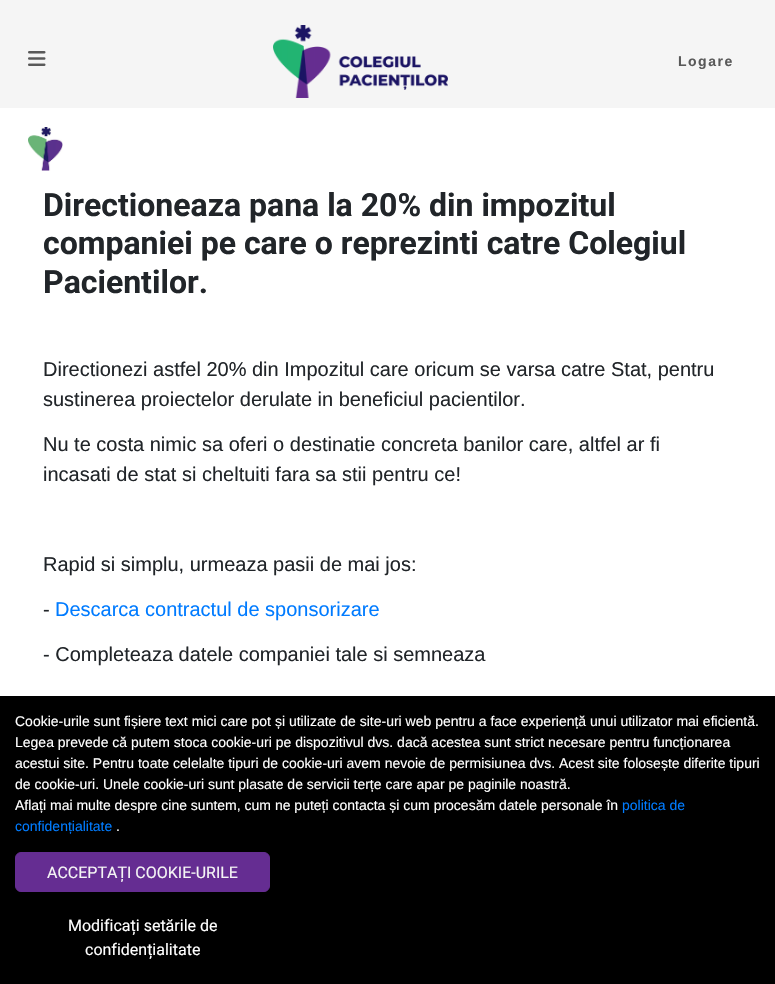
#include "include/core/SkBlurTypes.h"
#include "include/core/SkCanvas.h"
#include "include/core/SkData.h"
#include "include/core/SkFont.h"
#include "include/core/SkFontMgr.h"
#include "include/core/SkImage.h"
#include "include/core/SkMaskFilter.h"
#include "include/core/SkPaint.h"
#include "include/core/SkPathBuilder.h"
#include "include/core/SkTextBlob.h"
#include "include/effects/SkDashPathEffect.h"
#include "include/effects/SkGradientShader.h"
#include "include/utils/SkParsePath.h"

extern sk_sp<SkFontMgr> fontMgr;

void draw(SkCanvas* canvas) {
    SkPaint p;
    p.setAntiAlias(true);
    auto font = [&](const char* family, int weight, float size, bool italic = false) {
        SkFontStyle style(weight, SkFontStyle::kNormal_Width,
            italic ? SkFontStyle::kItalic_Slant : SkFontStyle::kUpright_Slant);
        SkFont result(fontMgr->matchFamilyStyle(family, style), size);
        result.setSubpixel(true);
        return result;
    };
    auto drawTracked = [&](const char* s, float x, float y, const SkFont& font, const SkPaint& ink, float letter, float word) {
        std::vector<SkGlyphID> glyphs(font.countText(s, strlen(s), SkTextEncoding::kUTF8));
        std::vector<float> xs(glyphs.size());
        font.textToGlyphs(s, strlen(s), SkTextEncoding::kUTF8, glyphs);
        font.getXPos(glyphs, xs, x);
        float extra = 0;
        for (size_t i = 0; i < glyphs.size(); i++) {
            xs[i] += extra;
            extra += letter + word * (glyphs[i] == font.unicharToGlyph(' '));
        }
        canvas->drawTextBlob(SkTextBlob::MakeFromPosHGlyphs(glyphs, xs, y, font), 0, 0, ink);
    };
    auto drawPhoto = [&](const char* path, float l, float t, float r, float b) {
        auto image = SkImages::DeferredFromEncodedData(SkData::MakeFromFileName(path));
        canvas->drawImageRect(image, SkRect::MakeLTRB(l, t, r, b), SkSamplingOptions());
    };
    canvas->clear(0xFFFFFFFF);
    p.setColor(0xFFF5F5F5);
    canvas->drawRect(SkRect::MakeLTRB(0, 0, 775, 108), p);
    drawPhoto("media/1.png", 28, 51, 46, 66);
    drawPhoto("media/2.png", 273, 25, 448, 98);
    auto font1 = font("Liberation Sans", 700, 14);
    p.setColor(0xFF595959);
    drawTracked("Logare", 678, 66, font1, p, 1.5f, 0);
    drawPhoto("media/3.png", 28, 127, 63, 171);
    auto font2 = font("Roboto", 700, 32);
    p.setColor(0xFF212529);
    {
        const struct { const char* s; float x, y; } items[] = {
            {"Directioneaza pana la 20% din impozitul", 43, 216},
            {"companiei pe care o reprezinti catre Colegiul", 43, 254},
            {"Pacientilor.", 43, 293},
        };
        for (auto [s, x, y] : items) {
            canvas->drawString(s, x, y, font2, p);
        }
    }
    auto font3 = font("Liberation Sans", 400, 20);
    {
        const struct { const char* s; float x, y; } items[] = {
            {"Directionezi astfel 20% din Impozitul care oricum se varsa catre Stat, pentru", 43, 376},
            {"sustinerea proiectelor derulate in beneficiul pacientilor.", 43, 406},
            {"Nu te costa nimic sa oferi o destinatie concreta banilor care, altfel ar fi", 43, 451},
            {"incasati de stat si cheltuiti fara sa stii pentru ce!", 43, 481},
            {"Rapid si simplu, urmeaza pasii de mai jos:", 43, 571},
            {"-", 43, 616},
        };
        for (auto [s, x, y] : items) {
            canvas->drawString(s, x, y, font3, p);
        }
    }
    p.setColor(0xFF007BFF);
    canvas->drawString("Descarca contractul de sponsorizare", 55, 616, font3, p);
    p.setColor(0xFF212529);
    canvas->drawString("- Completeaza datele companiei tale si semneaza", 43, 661, font3, p);
    p.setColor(0xFF000000);
    canvas->drawRect(SkRect::MakeLTRB(0, 696, 775, 984), p);
    auto font4 = font("Liberation Sans", 400, 14);
    p.setColor(0xFFFFFFFF);
    {
        const struct { const char* s; float x, y; } items[] = {
            {"Cookie-urile sunt fișiere text mici care pot și utilizate de site-uri web pentru a face experiență unui utilizator mai eficientă.", 15, 726},
            {"Legea prevede că putem stoca cookie-uri pe dispozitivul dvs. dacă acestea sunt strict necesare pentru funcționarea", 15, 747},
            {"acestui site. Pentru toate celelalte tipuri de cookie-uri avem nevoie de permisiunea dvs. Acest site folosește diferite tipuri", 15, 768},
            {"de cookie-uri. Unele cookie-uri sunt plasate de servicii terțe care apar pe paginile noastră.", 15, 789},
            {"Aflați mai multe despre cine suntem, cum ne puteți contacta și cum procesăm datele personale în", 15, 810},
        };
        for (auto [s, x, y] : items) {
            canvas->drawString(s, x, y, font4, p);
        }
    }
    p.setColor(0xFF007BFF);
    canvas->drawString("politica de", 622, 810, font4, p);
    canvas->drawString("confidențialitate", 15, 831, font4, p);
    p.setColor(0xFFFFFFFF);
    canvas->drawString(".", 116, 831, font4, p);
    p.setColor(0xFF652D92);
    canvas->drawRoundRect(SkRect::MakeLTRB(15.5f, 852.5f, 269.5f, 891.5f), 5.5f, 5.5f, p);
    p.setStyle(SkPaint::kStroke_Style);
    p.setStrokeWidth(1);
    canvas->drawRoundRect(SkRect::MakeLTRB(15.5f, 852.5f, 269.5f, 891.5f), 5.5f, 5.5f, p);
    auto font5 = font("Roboto", 400, 16);
    p.setStyle(SkPaint::kFill_Style);
    p.setColor(0xFFF5F5F5);
    canvas->drawString("ACCEPTAȚI COOKIE-URILE", 47, 878, font5, p);
    p.setColor(0xFFFFFFFF);
    canvas->drawString("Modificați setările de", 68, 931, font5, p);
    canvas->drawString("confidențialitate", 85, 955, font5, p);
}
